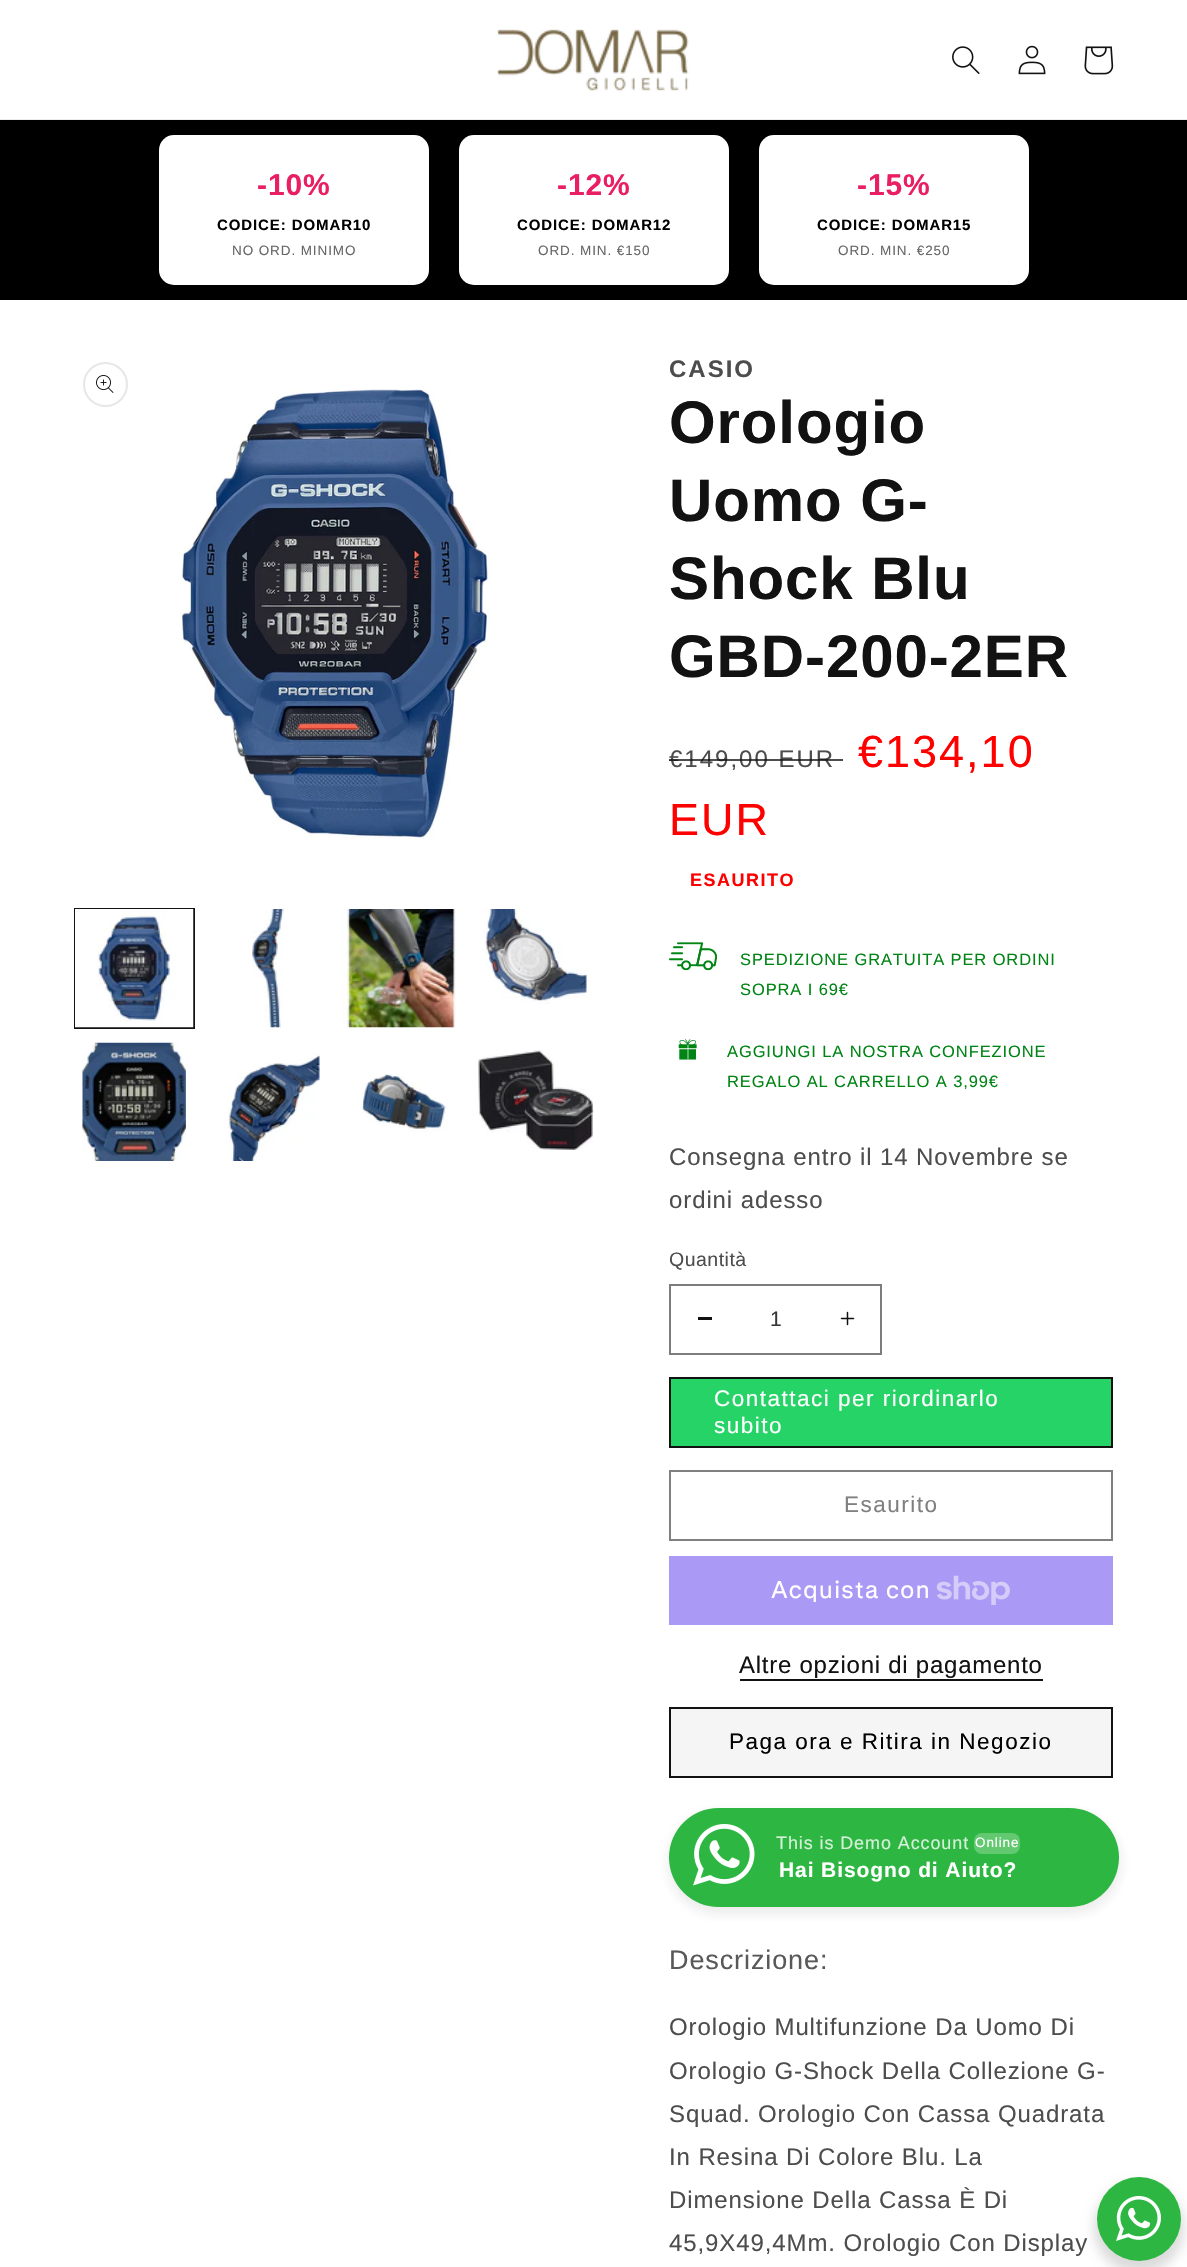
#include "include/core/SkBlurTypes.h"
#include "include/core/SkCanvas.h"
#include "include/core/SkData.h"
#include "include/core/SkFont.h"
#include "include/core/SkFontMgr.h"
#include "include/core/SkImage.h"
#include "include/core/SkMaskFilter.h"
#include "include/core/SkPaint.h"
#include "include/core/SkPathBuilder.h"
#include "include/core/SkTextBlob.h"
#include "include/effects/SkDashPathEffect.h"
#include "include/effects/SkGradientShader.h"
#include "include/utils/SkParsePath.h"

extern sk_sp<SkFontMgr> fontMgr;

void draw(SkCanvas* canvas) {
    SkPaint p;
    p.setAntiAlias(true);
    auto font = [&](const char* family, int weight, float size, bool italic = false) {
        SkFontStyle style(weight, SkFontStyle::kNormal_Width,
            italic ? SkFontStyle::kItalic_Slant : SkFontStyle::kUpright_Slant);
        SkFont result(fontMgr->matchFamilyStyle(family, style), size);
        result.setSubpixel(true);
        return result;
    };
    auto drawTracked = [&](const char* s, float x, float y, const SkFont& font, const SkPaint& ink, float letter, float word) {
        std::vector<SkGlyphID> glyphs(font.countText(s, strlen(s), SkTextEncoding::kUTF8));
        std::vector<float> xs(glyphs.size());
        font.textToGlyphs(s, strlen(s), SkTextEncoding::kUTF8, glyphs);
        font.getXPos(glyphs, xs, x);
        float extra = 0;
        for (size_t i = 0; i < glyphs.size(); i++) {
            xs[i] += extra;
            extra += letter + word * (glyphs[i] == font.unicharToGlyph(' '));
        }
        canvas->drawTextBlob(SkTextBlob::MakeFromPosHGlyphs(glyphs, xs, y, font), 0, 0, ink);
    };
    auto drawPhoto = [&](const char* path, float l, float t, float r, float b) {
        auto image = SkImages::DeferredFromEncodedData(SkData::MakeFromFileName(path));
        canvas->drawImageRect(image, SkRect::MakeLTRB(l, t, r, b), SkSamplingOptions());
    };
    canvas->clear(0xFFFFFFFF);
    p.setColor(0xFFECECEC);
    canvas->drawRect(SkRect::MakeLTRB(0, 119, 1187, 120), p);
    drawPhoto("media/1.png", 497, 29, 689, 91);
    drawPhoto("media/2.png", 952, 46, 980, 74);
    drawPhoto("media/3.png", 1018, 45, 1046, 75);
    drawPhoto("media/4.png", 1084, 46, 1114, 75);
    p.setColor(0xFF000000);
    canvas->drawRect(SkRect::MakeLTRB(0, 121, 1187, 300), p);
    p.setColor(0xFF010101);
    canvas->drawRect(SkRect::MakeLTRB(0, 120, 1187, 121), p);
    p.setColor(0xFFFFFFFF);
    canvas->drawRoundRect(SkRect::MakeLTRB(159, 135, 429, 285), 15, 15, p);
    auto font1 = font("Liberation Sans", 700, 30);
    p.setColor(0xFFE91E63);
    drawTracked("-10%", 257, 195, font1, p, 0.9f, 0);
    auto font2 = font("Liberation Sans", 700, 15);
    p.setColor(0xFF000000);
    drawTracked("CODICE: DOMAR10", 217, 230, font2, p, 0.9f, 0);
    auto font3 = font("Liberation Sans", 400, 13.5f);
    p.setColor(0xFF666666);
    drawTracked("NO ORD. MINIMO", 232, 255, font3, p, 0.9f, 0);
    p.setColor(0xFFFFFFFF);
    canvas->drawRoundRect(SkRect::MakeLTRB(459, 135, 729, 285), 15, 15, p);
    p.setColor(0xFFE91E63);
    drawTracked("-12%", 557, 195, font1, p, 0.9f, 0);
    p.setColor(0xFF000000);
    drawTracked("CODICE: DOMAR12", 517, 230, font2, p, 0.9f, 0);
    p.setColor(0xFF666666);
    drawTracked("ORD. MIN. €150", 538, 255, font3, p, 0.9f, 0);
    p.setColor(0xFFFFFFFF);
    canvas->drawRoundRect(SkRect::MakeLTRB(759, 135, 1029, 285), 15, 15, p);
    p.setColor(0xFFE91E63);
    drawTracked("-15%", 857, 195, font1, p, 0.9f, 0);
    p.setColor(0xFF000000);
    drawTracked("CODICE: DOMAR15", 817, 230, font2, p, 0.9f, 0);
    p.setColor(0xFF666666);
    drawTracked("ORD. MIN. €250", 838, 255, font3, p, 0.9f, 0);
    p.setStyle(SkPaint::kStroke_Style);
    p.setStrokeWidth(2);
    p.setColor(0xFFE7E7E7);
    canvas->drawCircle(105.5f, 384.5f, 21.5f, p);
    drawPhoto("media/5.png", 96, 375, 114, 393);
    drawPhoto("media/6.png", 181, 389, 490, 839);
    p.setColor(0xFF121212);
    canvas->drawRect(SkRect::MakeLTRB(75, 909, 194, 1028), p);
    drawPhoto("media/7.png", 75, 909, 194, 1028);
    drawPhoto("media/8.png", 252, 909, 284, 1028);
    drawPhoto("media/9.png", 342, 909, 456, 1028);
    drawPhoto("media/10.png", 483, 909, 587, 1004);
    drawPhoto("media/11.png", 82, 1042, 186, 1161);
    drawPhoto("media/12.png", 227, 1053, 320, 1161);
    drawPhoto("media/13.png", 361, 1074, 448, 1132);
    drawPhoto("media/14.png", 478, 1050, 594, 1150);
    auto font4 = font("Liberation Sans", 700, 24);
    p.setStyle(SkPaint::kFill_Style);
    p.setColor(0xFF4D4D4D);
    drawTracked("CASIO", 669, 377, font4, p, 2, 0);
    auto font5 = font("Liberation Sans", 700, 60);
    p.setColor(0xFF121212);
    {
        const struct { const char* s; float x, y; } items[] = {
            {"Orologio", 669, 443},
            {"Uomo G-", 669, 521},
            {"Shock Blu", 669, 599},
            {"GBD-200-2ER", 669, 677},
        };
        for (auto [s, x, y] : items) {
            drawTracked(s, x, y, font5, p, 0.9f, 0);
        }
    }
    auto font6 = font("Liberation Sans", 400, 24);
    p.setColor(0xFF4D4D4D);
    drawTracked("€149,00 EUR", 669, 767, font6, p, 2, 0);
    p.setColor(0xBF121212);
    canvas->drawRect(SkRect::MakeLTRB(669, 759, 843, 761), p);
    auto font7 = font("Liberation Sans", 400, 45);
    p.setColor(0xFFFF0000);
    drawTracked("€134,10", 858, 767, font7, p, 2, 0);
    drawTracked("EUR", 669, 835, font7, p, 2, 0);
    auto font8 = font("Liberation Sans", 700, 18);
    drawTracked("ESAURITO", 690, 886, font8, p, 1.5f, 0);
    drawPhoto("media/15.png", 669, 942, 717, 971);
    auto font9 = font("Liberation Sans", 400, 16.5f);
    p.setColor(0xFF008414);
    drawTracked("SPEDIZIONE GRATUITA PER ORDINI", 740, 965, font9, p, 0.9f, 0);
    drawTracked("SOPRA I 69€", 740, 995, font9, p, 0.9f, 0);
    drawPhoto("media/16.png", 678, 1039, 697, 1060);
    drawTracked("AGGIUNGI LA NOSTRA CONFEZIONE", 727, 1057, font9, p, 0.9f, 0);
    drawTracked("REGALO AL CARRELLO A 3,99€", 727, 1087, font9, p, 0.9f, 0);
    p.setColor(0xFF4D4D4D);
    drawTracked("Consegna entro il 14 Novembre se", 669, 1165, font6, p, 0.9f, 0);
    drawTracked("ordini adesso", 669, 1208, font6, p, 0.9f, 0);
    auto font10 = font("Liberation Sans", 400, 19.5f);
    drawTracked("Quantità", 669, 1266, font10, p, 0.5f, 0);
    p.setColor(0xFF121212);
    canvas->drawRect(SkRect::MakeLTRB(698, 1317, 712, 1320), p);
    drawPhoto("media/17.png", 840, 1311, 855, 1326);
    p.setStyle(SkPaint::kStroke_Style);
    p.setColor(0xFF7D7D7D);
    canvas->drawRect(SkRect::MakeLTRB(670, 1285, 881, 1354), p);
    auto font11 = font("Liberation Sans", 400, 21);
    p.setStyle(SkPaint::kFill_Style);
    p.setColor(0xFF363636);
    canvas->drawString("1", 770, 1326, font11, p);
    p.setColor(0xFF25D366);
    canvas->drawRect(SkRect::MakeLTRB(671, 1379, 1111, 1446), p);
    p.setStyle(SkPaint::kStroke_Style);
    p.setColor(0xFF121212);
    canvas->drawRect(SkRect::MakeLTRB(670, 1378, 1112, 1447), p);
    auto font12 = font("Liberation Sans", 400, 22.5f);
    p.setStyle(SkPaint::kFill_Style);
    p.setColor(0xFFFFFFFF);
    drawTracked("Contattaci per riordinarlo", 714, 1406, font12, p, 1.5f, 0);
    drawTracked("subito", 714, 1433, font12, p, 1.5f, 0);
    p.setStyle(SkPaint::kStroke_Style);
    p.setColor(0xFF808080);
    canvas->drawRect(SkRect::MakeLTRB(670, 1471, 1112, 1540), p);
    p.setStyle(SkPaint::kFill_Style);
    drawTracked("Esaurito", 844, 1512, font12, p, 1.5f, 0);
    p.setColor(0xFFAA99F5);
    canvas->drawRect(SkRect::MakeLTRB(669, 1556, 1113, 1625), p);
    auto font13 = font("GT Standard", 400, 24);
    p.setColor(0xFFFFFFFF);
    drawTracked("Acquista con", 771, 1598, font13, p, 0.9f, 0);
    drawPhoto("media/18.png", 936, 1575, 1010, 1605);
    p.setColor(0xFF121212);
    drawTracked("Altre opzioni di pagamento", 739, 1673, font6, p, 0.75f, 0);
    canvas->drawRect(SkRect::MakeLTRB(740, 1679, 1043, 1681), p);
    p.setColor(0xFFF5F5F5);
    canvas->drawRect(SkRect::MakeLTRB(671, 1709, 1111, 1776), p);
    p.setStyle(SkPaint::kStroke_Style);
    p.setColor(0xFF121212);
    canvas->drawRect(SkRect::MakeLTRB(670, 1708, 1112, 1777), p);
    p.setStyle(SkPaint::kFill_Style);
    p.setColor(0xFF000000);
    drawTracked("Paga ora e Ritira in Negozio", 729, 1749, font12, p, 1.5f, 0);
    p.setColor(0x17202025);
    p.setMaskFilter(SkMaskFilter::MakeBlur(kNormal_SkBlurStyle, 6));
    canvas->drawRoundRect(SkRect::MakeLTRB(668, 1812, 1121, 1914), 51, 51, p);
    p.setMaskFilter(nullptr);
    p.setColor(0xFF2DB742);
    canvas->drawRoundRect(SkRect::MakeLTRB(669, 1808, 1119, 1907), 49.5f, 49.5f, p);
    drawPhoto("media/19.png", 693, 1824, 755, 1886);
    auto font14 = font("Liberation Sans", 400, 18);
    p.setColor(0xFFD5F0D9);
    drawTracked("This is Demo Account", 776, 1849, font14, p, 0.9f, 0);
    p.setColor(0xFF62C971);
    canvas->drawRoundRect(SkRect::MakeLTRB(974, 1833, 1020, 1854), 8, 8, p);
    p.setColor(0xFFFFFFFF);
    drawTracked("Online", 975, 1847, font3, p, 0.9f, 0);
    auto font15 = font("Liberation Sans", 700, 21);
    drawTracked("Hai Bisogno di Aiuto?", 779, 1877, font15, p, 0.9f, 0);
    auto font16 = font("Liberation Sans", 400, 27);
    p.setColor(0xFF595959);
    drawTracked("Descrizione:", 669, 1969, font16, p, 0.9f, 0);
    p.setColor(0xFF4D4D4D);
    {
        const struct { const char* s; float x, y; } items[] = {
            {"Orologio Multifunzione Da Uomo Di", 669, 2035},
            {"Orologio G-Shock Della Collezione G-", 669, 2079},
            {"Squad. Orologio Con Cassa Quadrata", 669, 2122},
            {"In Resina Di Colore Blu. La", 669, 2165},
            {"Dimensione Della Cassa È Di", 669, 2208},
            {"45,9X49,4Mm. Orologio Con Display", 669, 2251},
        };
        for (auto [s, x, y] : items) {
            drawTracked(s, x, y, font6, p, 0.9f, 0);
        }
    }
    p.setColor(0x24000000);
    p.setMaskFilter(SkMaskFilter::MakeBlur(kNormal_SkBlurStyle, 6));
    canvas->drawRoundRect(SkRect::MakeLTRB(1094, 2183, 1184, 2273), 45, 45, p);
    p.setMaskFilter(nullptr);
    p.setColor(0xFF2DB742);
    canvas->drawCircle(1139, 2219, 42, p);
    drawPhoto("media/20.png", 1116, 2196, 1161, 2241);
}
